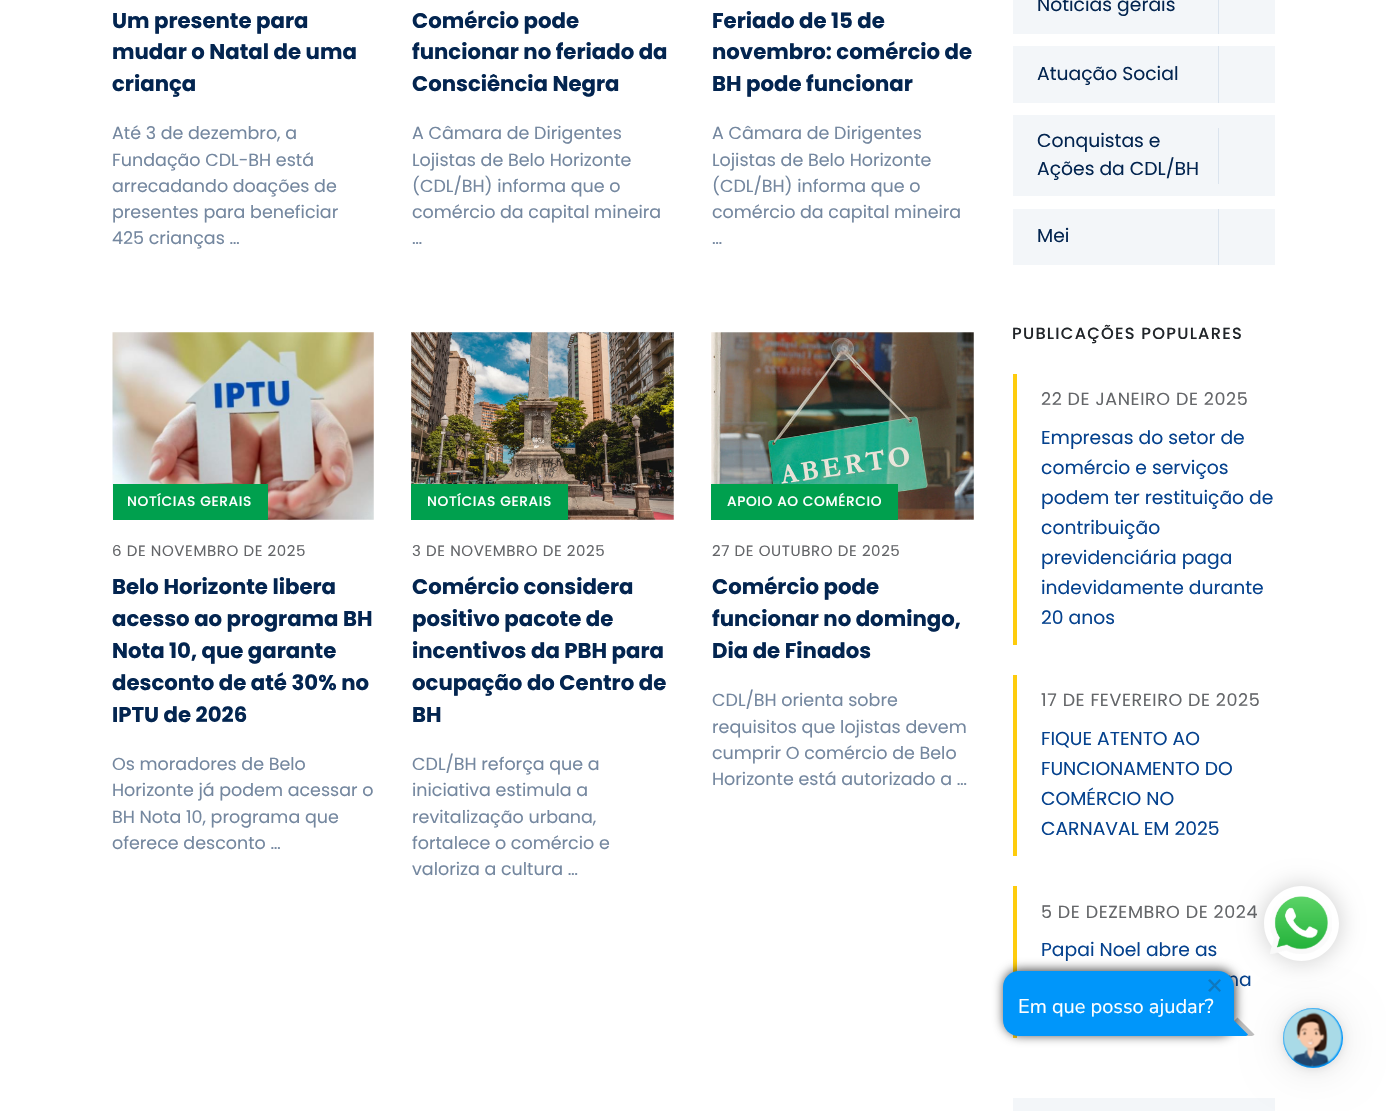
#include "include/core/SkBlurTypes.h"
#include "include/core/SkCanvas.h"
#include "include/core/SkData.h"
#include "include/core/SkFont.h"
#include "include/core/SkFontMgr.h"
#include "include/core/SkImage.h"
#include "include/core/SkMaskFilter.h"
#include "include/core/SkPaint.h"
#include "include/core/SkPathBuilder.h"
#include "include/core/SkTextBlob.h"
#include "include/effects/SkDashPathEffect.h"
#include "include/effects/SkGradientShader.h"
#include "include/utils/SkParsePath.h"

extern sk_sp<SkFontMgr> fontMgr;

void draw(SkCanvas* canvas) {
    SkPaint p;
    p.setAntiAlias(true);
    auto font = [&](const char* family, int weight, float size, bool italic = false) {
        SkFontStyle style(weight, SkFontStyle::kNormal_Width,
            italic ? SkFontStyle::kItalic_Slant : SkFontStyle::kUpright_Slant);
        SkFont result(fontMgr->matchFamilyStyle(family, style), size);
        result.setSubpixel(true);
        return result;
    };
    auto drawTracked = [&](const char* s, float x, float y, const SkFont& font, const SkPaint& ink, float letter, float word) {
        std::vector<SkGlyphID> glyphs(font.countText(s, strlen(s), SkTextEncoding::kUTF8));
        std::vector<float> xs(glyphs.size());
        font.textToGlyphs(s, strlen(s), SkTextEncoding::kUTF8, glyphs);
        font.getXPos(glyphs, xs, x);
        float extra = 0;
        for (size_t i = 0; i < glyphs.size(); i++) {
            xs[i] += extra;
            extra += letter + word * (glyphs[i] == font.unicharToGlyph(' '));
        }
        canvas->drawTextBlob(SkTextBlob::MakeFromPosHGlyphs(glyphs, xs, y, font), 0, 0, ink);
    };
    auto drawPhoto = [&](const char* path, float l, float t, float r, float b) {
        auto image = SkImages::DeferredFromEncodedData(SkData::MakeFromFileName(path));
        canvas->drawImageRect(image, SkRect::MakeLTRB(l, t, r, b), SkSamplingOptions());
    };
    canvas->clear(0xFFFFFFFF);
    auto font1 = font("Poppins", 700, 21.25f);
    p.setColor(0xFF032550);
    {
        const struct { const char* s; float x, y; } items[] = {
            {"Um presente para", 112, 28},
            {"mudar o Natal de uma", 112, 59},
            {"criança", 112, 91},
        };
        for (auto [s, x, y] : items) {
            canvas->drawString(s, x, y, font1, p);
        }
    }
    auto font2 = font("Poppins", 400, 17.5f);
    p.setColor(0xFF74879F);
    {
        const struct { const char* s; float x, y; } items[] = {
            {"Até 3 de dezembro, a", 112, 139},
            {"Fundação CDL-BH está", 112, 166},
            {"arrecadando doações de", 112, 192},
            {"presentes para beneficiar", 112, 218},
            {"425 crianças …", 112, 244},
        };
        for (auto [s, x, y] : items) {
            canvas->drawString(s, x, y, font2, p);
        }
    }
    p.setColor(0xFF032550);
    {
        const struct { const char* s; float x, y; } items[] = {
            {"Comércio pode", 412, 28},
            {"funcionar no feriado da", 412, 59},
            {"Consciência Negra", 412, 91},
        };
        for (auto [s, x, y] : items) {
            canvas->drawString(s, x, y, font1, p);
        }
    }
    p.setColor(0xFF74879F);
    {
        const struct { const char* s; float x, y; } items[] = {
            {"A Câmara de Dirigentes", 412, 139},
            {"Lojistas de Belo Horizonte", 412, 166},
            {"(CDL/BH) informa que o", 412, 192},
            {"comércio da capital mineira", 412, 218},
            {"…", 412, 244},
        };
        for (auto [s, x, y] : items) {
            canvas->drawString(s, x, y, font2, p);
        }
    }
    p.setColor(0xFF032550);
    {
        const struct { const char* s; float x, y; } items[] = {
            {"Feriado de 15 de", 712, 28},
            {"novembro: comércio de", 712, 59},
            {"BH pode funcionar", 712, 91},
        };
        for (auto [s, x, y] : items) {
            canvas->drawString(s, x, y, font1, p);
        }
    }
    p.setColor(0xFF74879F);
    {
        const struct { const char* s; float x, y; } items[] = {
            {"A Câmara de Dirigentes", 712, 139},
            {"Lojistas de Belo Horizonte", 712, 166},
            {"(CDL/BH) informa que o", 712, 192},
            {"comércio da capital mineira", 712, 218},
            {"…", 712, 244},
        };
        for (auto [s, x, y] : items) {
            canvas->drawString(s, x, y, font2, p);
        }
    }
    drawPhoto("media/1.png", 112, 332, 374, 520);
    p.setColor(0xFF00A04E);
    canvas->drawRect(SkRect::MakeLTRB(113, 484, 268, 520), p);
    auto font3 = font("Poppins", 500, 13.75f);
    p.setColor(0xFFFFFFFF);
    drawTracked("NOTÍCIAS GERAIS", 127, 506, font3, p, 0.6f, 0);
    auto font4 = font("Poppins", 400, 15);
    p.setColor(0xFF646669);
    drawTracked("6 DE NOVEMBRO DE 2025", 112, 556, font4, p, 0.6f, 0);
    p.setColor(0xFF032550);
    {
        const struct { const char* s; float x, y; } items[] = {
            {"Belo Horizonte libera", 112, 594},
            {"acesso ao programa BH", 112, 626},
            {"Nota 10, que garante", 112, 658},
            {"desconto de até 30% no", 112, 690},
            {"IPTU de 2026", 112, 722},
        };
        for (auto [s, x, y] : items) {
            canvas->drawString(s, x, y, font1, p);
        }
    }
    p.setColor(0xFF74879F);
    {
        const struct { const char* s; float x, y; } items[] = {
            {"Os moradores de Belo", 112, 770},
            {"Horizonte já podem acessar o", 112, 796},
            {"BH Nota 10, programa que", 112, 823},
            {"oferece desconto …", 112, 849},
        };
        for (auto [s, x, y] : items) {
            canvas->drawString(s, x, y, font2, p);
        }
    }
    drawPhoto("media/2.png", 411, 332, 674, 520);
    p.setColor(0xFF00A04E);
    canvas->drawRect(SkRect::MakeLTRB(411, 484, 568, 520), p);
    p.setColor(0xFFFFFFFF);
    drawTracked("NOTÍCIAS GERAIS", 427, 506, font3, p, 0.6f, 0);
    p.setColor(0xFF646669);
    drawTracked("3 DE NOVEMBRO DE 2025", 412, 556, font4, p, 0.6f, 0);
    p.setColor(0xFF032550);
    {
        const struct { const char* s; float x, y; } items[] = {
            {"Comércio considera", 412, 594},
            {"positivo pacote de", 412, 626},
            {"incentivos da PBH para", 412, 658},
            {"ocupação do Centro de", 412, 690},
            {"BH", 412, 722},
        };
        for (auto [s, x, y] : items) {
            canvas->drawString(s, x, y, font1, p);
        }
    }
    p.setColor(0xFF74879F);
    {
        const struct { const char* s; float x, y; } items[] = {
            {"CDL/BH reforça que a", 412, 770},
            {"iniciativa estimula a", 412, 796},
            {"revitalização urbana,", 412, 823},
            {"fortalece o comércio e", 412, 849},
            {"valoriza a cultura …", 412, 875},
        };
        for (auto [s, x, y] : items) {
            canvas->drawString(s, x, y, font2, p);
        }
    }
    drawPhoto("media/3.png", 711, 332, 974, 520);
    p.setColor(0xFF00A04E);
    canvas->drawRect(SkRect::MakeLTRB(711, 484, 898, 520), p);
    p.setColor(0xFFFFFFFF);
    drawTracked("APOIO AO COMÉRCIO", 727, 506, font3, p, 0.6f, 0);
    p.setColor(0xFF646669);
    drawTracked("27 DE OUTUBRO DE 2025", 712, 556, font4, p, 0.6f, 0);
    p.setColor(0xFF032550);
    {
        const struct { const char* s; float x, y; } items[] = {
            {"Comércio pode", 712, 594},
            {"funcionar no domingo,", 712, 626},
            {"Dia de Finados", 712, 658},
        };
        for (auto [s, x, y] : items) {
            canvas->drawString(s, x, y, font1, p);
        }
    }
    p.setColor(0xFF74879F);
    {
        const struct { const char* s; float x, y; } items[] = {
            {"CDL/BH orienta sobre", 712, 706},
            {"requisitos que lojistas devem", 712, 733},
            {"cumprir O comércio de Belo", 712, 759},
            {"Horizonte está autorizado a …", 712, 785},
        };
        for (auto [s, x, y] : items) {
            canvas->drawString(s, x, y, font2, p);
        }
    }
    p.setColor(0xFFF3F6F9);
    canvas->drawRect(SkRect::MakeLTRB(1013, 0, 1275, 34), p);
    auto font5 = font("Poppins", 400, 18.75f);
    p.setColor(0xFF032550);
    canvas->drawString("Notícias gerais", 1037, 11, font5, p);
    p.setColor(0xFFDBE4EE);
    canvas->drawRect(SkRect::MakeLTRB(1218, 0, 1219, 34), p);
    p.setColor(0xFFF3F6F9);
    canvas->drawRect(SkRect::MakeLTRB(1013, 46, 1275, 103), p);
    p.setColor(0xFF032550);
    canvas->drawString("Atuação Social", 1037, 80, font5, p);
    p.setColor(0xFFDBE4EE);
    canvas->drawRect(SkRect::MakeLTRB(1218, 46, 1219, 103), p);
    p.setColor(0xFFF3F6F9);
    canvas->drawRect(SkRect::MakeLTRB(1013, 115, 1275, 196), p);
    p.setColor(0xFF032550);
    canvas->drawString("Conquistas e", 1037, 147, font5, p);
    canvas->drawString("Ações da CDL/BH", 1037, 175, font5, p);
    p.setColor(0xFFDBE4EE);
    canvas->drawRect(SkRect::MakeLTRB(1218, 128, 1219, 184), p);
    p.setColor(0xFFF3F6F9);
    canvas->drawRect(SkRect::MakeLTRB(1013, 209, 1275, 265), p);
    p.setColor(0xFF032550);
    canvas->drawString("Mei", 1037, 242, font5, p);
    p.setColor(0xFFDBE4EE);
    canvas->drawRect(SkRect::MakeLTRB(1218, 209, 1219, 265), p);
    auto font6 = font("Poppins", 500, 16.25f);
    p.setColor(0xFF212529);
    drawTracked("PUBLICAÇÕES POPULARES", 1012, 339, font6, p, 1.25f, 0);
    p.setColor(0xFFFECC0D);
    canvas->drawRect(SkRect::MakeLTRB(1013, 374, 1017, 645), p);
    p.setColor(0xFF646669);
    drawTracked("22 DE JANEIRO DE 2025", 1041, 405, font2, p, 0.6f, 0);
    p.setColor(0xFF05428E);
    {
        const struct { const char* s; float x, y; } items[] = {
            {"Empresas do setor de", 1041, 444},
            {"comércio e serviços", 1041, 474},
            {"podem ter restituição de", 1041, 504},
            {"contribuição", 1041, 534},
            {"previdenciária paga", 1041, 564},
            {"indevidamente durante", 1041, 594},
            {"20 anos", 1041, 624},
        };
        for (auto [s, x, y] : items) {
            canvas->drawString(s, x, y, font5, p);
        }
    }
    p.setColor(0xFFFECC0D);
    canvas->drawRect(SkRect::MakeLTRB(1013, 675, 1017, 856), p);
    p.setColor(0xFF646669);
    drawTracked("17 DE FEVEREIRO DE 2025", 1041, 706, font2, p, 0.6f, 0);
    p.setColor(0xFF05428E);
    {
        const struct { const char* s; float x, y; } items[] = {
            {"FIQUE ATENTO AO", 1041, 745},
            {"FUNCIONAMENTO DO", 1041, 775},
            {"COMÉRCIO NO", 1041, 805},
            {"CARNAVAL EM 2025", 1041, 835},
        };
        for (auto [s, x, y] : items) {
            canvas->drawString(s, x, y, font5, p);
        }
    }
    p.setColor(0xFFFECC0D);
    canvas->drawRect(SkRect::MakeLTRB(1013, 886, 1017, 1038), p);
    p.setColor(0xFF646669);
    drawTracked("5 DE DEZEMBRO DE 2024", 1041, 918, font2, p, 0.6f, 0);
    p.setColor(0xFF05428E);
    canvas->drawString("Papai Noel abre as", 1041, 956, font5, p);
    canvas->drawString("na", 1227, 986, font5, p);
    p.setColor(0xFFF3F6F9);
    canvas->drawRect(SkRect::MakeLTRB(1013, 1098, 1275, 1111), p);
    p.setColor(0xBF000000);
    p.setMaskFilter(SkMaskFilter::MakeBlur(kNormal_SkBlurStyle, 5.5f));
    canvas->drawRoundRect(SkRect::MakeLTRB(1004, 970, 1235, 1035), 16, 16, p);
    p.setMaskFilter(nullptr);
    p.setColor(0xFF0096FA);
    canvas->drawPath(SkPathBuilder().moveTo(1019, 971).lineTo(1218, 971).cubicTo(1227, 971, 1234, 978, 1234, 987).lineTo(1234, 1033.5f).cubicTo(1234, 1035, 1233, 1036, 1231.5f, 1036).lineTo(1019, 1036).cubicTo(1010, 1036, 1003, 1029, 1003, 1020).lineTo(1003, 987).cubicTo(1003, 978, 1010, 971, 1019, 971).close().detach(), p);
    canvas->save();
    canvas->clipPath(SkPathBuilder(SkPathFillType::kEvenOdd).moveTo(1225, 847).lineTo(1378, 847).lineTo(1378, 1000).lineTo(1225, 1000).close().moveTo(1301.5f, 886).cubicTo(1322, 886, 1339, 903, 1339, 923.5f).cubicTo(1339, 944, 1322, 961, 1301.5f, 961).cubicTo(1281, 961, 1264, 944, 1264, 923.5f).cubicTo(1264, 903, 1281, 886, 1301.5f, 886).close().detach(), true);
    p.setColor(0x33000000);
    p.setMaskFilter(SkMaskFilter::MakeBlur(kNormal_SkBlurStyle, 12.5f));
    canvas->drawRoundRect(SkRect::MakeLTRB(1264, 886, 1339, 961), 37.5f, 37.5f, p);
    p.setMaskFilter(nullptr);
    canvas->restore();
    drawPhoto("media/4.png", 1270, 896, 1332, 954);
    p.setColor(0xFF0F78BE);
    canvas->drawPath(SkPathBuilder().moveTo(1219.5f, 979).lineTo(1221, 980.5f).lineTo(1210, 992).lineTo(1208, 990.5f).close().detach(), p);
    canvas->drawPath(SkPathBuilder().moveTo(1208, 980.5f).lineTo(1210, 979).lineTo(1221, 990.5f).lineTo(1219.5f, 992).close().detach(), p);
    auto font7 = font("Nunito Sans", 400, 20);
    p.setColor(0xFFFFFFFF);
    canvas->drawString("Em que posso ajudar?", 1018, 1013, font7, p);
    p.setColor(0x40000000);
    canvas->drawPath(SkPathBuilder().moveTo(1237.5f, 1017.5f).lineTo(1254.5f, 1034.5f).cubicTo(1253.5f, 1035.5f, 1252, 1036, 1250.5f, 1036).lineTo(1224.5f, 1036).cubicTo(1223, 1036, 1221.5f, 1035.5f, 1220.5f, 1034.5f).close().detach(), p);
    p.setColor(0xFF0096FA);
    canvas->drawPath(SkPathBuilder().moveTo(1248, 1034.5f).cubicTo(1247.5f, 1035.5f, 1246, 1036, 1244.5f, 1036).lineTo(1220.5f, 1036).cubicTo(1219, 1036, 1217.5f, 1035.5f, 1217, 1034.5f).lineTo(1232.5f, 1019).close().detach(), p);
    p.setColor(0x1A000000);
    p.setMaskFilter(SkMaskFilter::MakeBlur(kNormal_SkBlurStyle, 20));
    canvas->drawRoundRect(SkRect::MakeLTRB(1283, 1010, 1343, 1070), 30, 30, p);
    p.setMaskFilter(nullptr);
    p.setMaskFilter(SkMaskFilter::MakeBlur(kNormal_SkBlurStyle, 4));
    canvas->drawRoundRect(SkRect::MakeLTRB(1283, 1009, 1343, 1069), 30, 30, p);
    p.setMaskFilter(nullptr);
    p.setColor(0xFF0096FA);
    canvas->drawCircle(1313, 1038, 30, p);
    drawPhoto("media/5.png", 1283, 1008, 1342, 1067);
}
